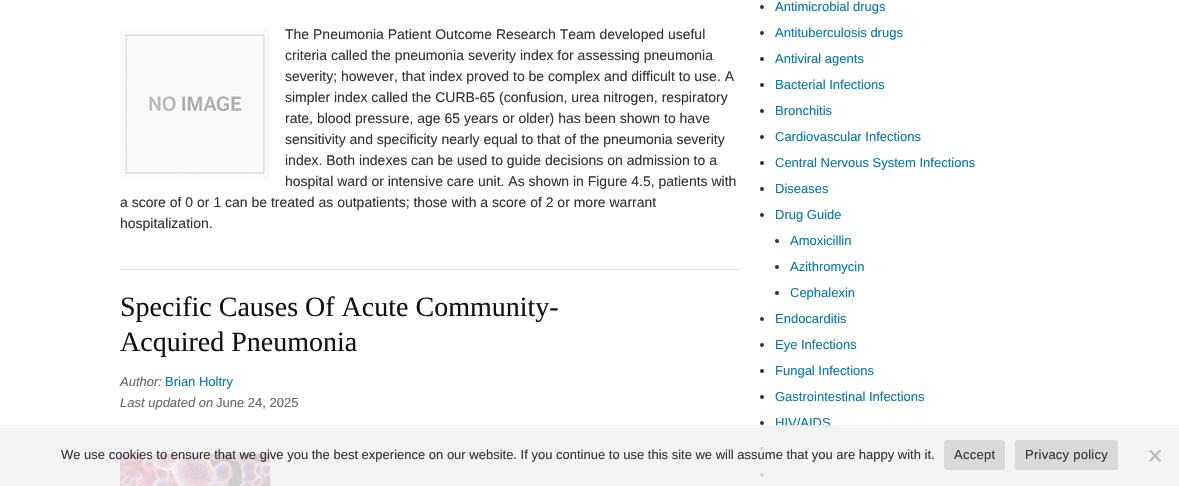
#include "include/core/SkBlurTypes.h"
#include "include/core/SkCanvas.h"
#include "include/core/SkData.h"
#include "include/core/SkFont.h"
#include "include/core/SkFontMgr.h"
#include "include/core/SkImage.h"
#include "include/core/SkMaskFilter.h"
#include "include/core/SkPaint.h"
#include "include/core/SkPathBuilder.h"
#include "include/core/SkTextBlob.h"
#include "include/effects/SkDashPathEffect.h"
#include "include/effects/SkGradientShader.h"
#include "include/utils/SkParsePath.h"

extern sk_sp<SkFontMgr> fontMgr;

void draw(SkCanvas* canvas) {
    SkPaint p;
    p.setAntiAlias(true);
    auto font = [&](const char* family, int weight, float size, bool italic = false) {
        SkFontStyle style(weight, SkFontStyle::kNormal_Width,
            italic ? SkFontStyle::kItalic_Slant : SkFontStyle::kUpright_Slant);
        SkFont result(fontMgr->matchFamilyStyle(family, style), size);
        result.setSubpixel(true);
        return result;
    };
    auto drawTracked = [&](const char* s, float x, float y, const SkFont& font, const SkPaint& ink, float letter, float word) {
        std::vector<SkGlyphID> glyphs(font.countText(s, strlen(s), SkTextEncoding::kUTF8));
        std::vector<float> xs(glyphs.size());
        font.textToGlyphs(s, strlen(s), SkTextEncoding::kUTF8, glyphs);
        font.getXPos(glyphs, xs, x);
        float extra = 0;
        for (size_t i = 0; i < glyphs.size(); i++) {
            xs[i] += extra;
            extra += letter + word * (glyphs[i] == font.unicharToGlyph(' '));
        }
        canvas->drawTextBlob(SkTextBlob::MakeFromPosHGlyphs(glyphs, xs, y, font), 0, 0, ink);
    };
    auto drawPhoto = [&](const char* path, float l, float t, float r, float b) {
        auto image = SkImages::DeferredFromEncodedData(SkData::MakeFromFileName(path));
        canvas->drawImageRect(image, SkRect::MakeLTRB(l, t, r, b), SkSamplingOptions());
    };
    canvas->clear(0xFFFFFFFF);
    p.setColor(0xFFDDDDDD);
    canvas->drawRect(SkRect::MakeLTRB(120, 269, 740, 270), p);
    auto font1 = font("Liberation Sans", 400, 14);
    p.setColor(0xFF333333);
    {
        const struct { const char* s; float x, y; } items[] = {
            {"The Pneumonia Patient Outcome Research Team developed useful", 285, 39},
            {"criteria called the pneumonia severity index for assessing pneumonia", 285, 60},
            {"severity; however, that index proved to be complex and difficult to use. A", 285, 81},
            {"simpler index called the CURB-65 (confusion, urea nitrogen, respiratory", 285, 102},
            {"rate, blood pressure, age 65 years or older) has been shown to have", 285, 123},
            {"sensitivity and specificity nearly equal to that of the pneumonia severity", 285, 144},
            {"index. Both indexes can be used to guide decisions on admission to a", 285, 165},
            {"hospital ward or intensive care unit. As shown in Figure 4.5, patients with", 285, 186},
            {"a score of 0 or 1 can be treated as outpatients; those with a score of 2 or more warrant", 120, 207},
            {"hospitalization.", 120, 228},
        };
        for (auto [s, x, y] : items) {
            canvas->drawString(s, x, y, font1, p);
        }
    }
    drawPhoto("media/1.png", 120, 29, 270, 179);
    auto font2 = font("Liberation Serif", 400, 28);
    p.setColor(0xFF111111);
    canvas->drawString("Specific Causes Of Acute Community-", 120, 316, font2, p);
    canvas->drawString("Acquired Pneumonia", 120, 351, font2, p);
    auto font3 = font("Liberation Sans", 400, 13, true);
    p.setColor(0xFF666666);
    canvas->drawString("Author:", 120, 386, font3, p);
    auto font4 = font("Liberation Sans", 400, 13);
    p.setColor(0xFF0279B5);
    canvas->drawString("Brian Holtry", 165, 386, font4, p);
    p.setColor(0xFF666666);
    canvas->drawString("Last updated on", 120, 407, font3, p);
    canvas->drawString("June 24, 2025", 216, 407, font4, p);
    drawPhoto("media/2.png", 120, 454, 270, 486);
    p.setColor(0xFF333333);
    canvas->drawCircle(762, 7, 2, p);
    p.setColor(0xFF0279B5);
    canvas->drawString("Antimicrobial drugs", 775, 11, font4, p);
    p.setColor(0xFF333333);
    canvas->drawCircle(762, 33, 2, p);
    p.setColor(0xFF0279B5);
    canvas->drawString("Antituberculosis drugs", 775, 37, font4, p);
    p.setColor(0xFF333333);
    canvas->drawCircle(762, 59, 2, p);
    p.setColor(0xFF0279B5);
    canvas->drawString("Antiviral agents", 775, 63, font4, p);
    p.setColor(0xFF333333);
    canvas->drawCircle(762, 85, 2, p);
    p.setColor(0xFF0279B5);
    canvas->drawString("Bacterial Infections", 775, 89, font4, p);
    p.setColor(0xFF333333);
    canvas->drawCircle(762, 111, 2, p);
    p.setColor(0xFF0279B5);
    canvas->drawString("Bronchitis", 775, 115, font4, p);
    p.setColor(0xFF333333);
    canvas->drawCircle(762, 137, 2, p);
    p.setColor(0xFF0279B5);
    canvas->drawString("Cardiovascular Infections", 775, 141, font4, p);
    p.setColor(0xFF333333);
    canvas->drawCircle(762, 163, 2, p);
    p.setColor(0xFF0279B5);
    canvas->drawString("Central Nervous System Infections", 775, 167, font4, p);
    p.setColor(0xFF333333);
    canvas->drawCircle(762, 189, 2, p);
    p.setColor(0xFF0279B5);
    canvas->drawString("Diseases", 775, 193, font4, p);
    p.setColor(0xFF333333);
    canvas->drawCircle(762, 215, 2, p);
    p.setColor(0xFF0279B5);
    canvas->drawString("Drug Guide", 775, 219, font4, p);
    p.setColor(0xFF333333);
    canvas->drawCircle(777, 241, 2, p);
    p.setColor(0xFF0279B5);
    canvas->drawString("Amoxicillin", 790, 245, font4, p);
    p.setColor(0xFF333333);
    canvas->drawCircle(777, 267, 2, p);
    p.setColor(0xFF0279B5);
    canvas->drawString("Azithromycin", 790, 271, font4, p);
    p.setColor(0xFF333333);
    canvas->drawCircle(777, 293, 2, p);
    p.setColor(0xFF0279B5);
    canvas->drawString("Cephalexin", 790, 297, font4, p);
    p.setColor(0xFF333333);
    canvas->drawCircle(762, 319, 2, p);
    p.setColor(0xFF0279B5);
    canvas->drawString("Endocarditis", 775, 323, font4, p);
    p.setColor(0xFF333333);
    canvas->drawCircle(762, 345, 2, p);
    p.setColor(0xFF0279B5);
    canvas->drawString("Eye Infections", 775, 349, font4, p);
    p.setColor(0xFF333333);
    canvas->drawCircle(762, 371, 2, p);
    p.setColor(0xFF0279B5);
    canvas->drawString("Fungal Infections", 775, 375, font4, p);
    p.setColor(0xFF333333);
    canvas->drawCircle(762, 397, 2, p);
    p.setColor(0xFF0279B5);
    canvas->drawString("Gastrointestinal Infections", 775, 401, font4, p);
    p.setColor(0xFF333333);
    canvas->drawCircle(762, 423, 2, p);
    p.setColor(0xFF0279B5);
    canvas->drawString("HIV/AIDS", 775, 427, font4, p);
    p.setColor(0xFF333333);
    canvas->drawCircle(762, 449, 2, p);
    canvas->drawCircle(762, 475, 2, p);
    p.setColor(0xD9F1F1F1);
    canvas->drawRect(SkRect::MakeLTRB(0, 425, 1179, 486), p);
    p.setColor(0xFF333333);
    canvas->drawString("We use cookies to ensure that we give you the best experience on our website. If you continue to use this site we will assume that you are happy with it.", 61, 459, font4, p);
    p.setColor(0xFFD9D9D9);
    canvas->drawRoundRect(SkRect::MakeLTRB(944, 440, 1005, 470), 3, 3, p);
    p.setColor(0xFF333333);
    drawTracked("Accept", 954, 459, font4, p, 0.25f, 0);
    p.setColor(0xFFD9D9D9);
    canvas->drawRoundRect(SkRect::MakeLTRB(1015, 440, 1118, 470), 3, 3, p);
    p.setColor(0xFF333333);
    drawTracked("Privacy policy", 1025, 459, font4, p, 0.25f, 0);
    p.setColor(0xFFBABABA);
    canvas->drawPath(SkPathBuilder().moveTo(1159.5f, 449.5f).lineTo(1161, 451).lineTo(1150.5f, 462).lineTo(1149, 460.5f).close().detach(), p);
    canvas->drawPath(SkPathBuilder().moveTo(1149, 451).lineTo(1150.5f, 449.5f).lineTo(1161, 460.5f).lineTo(1159.5f, 462).close().detach(), p);
}
